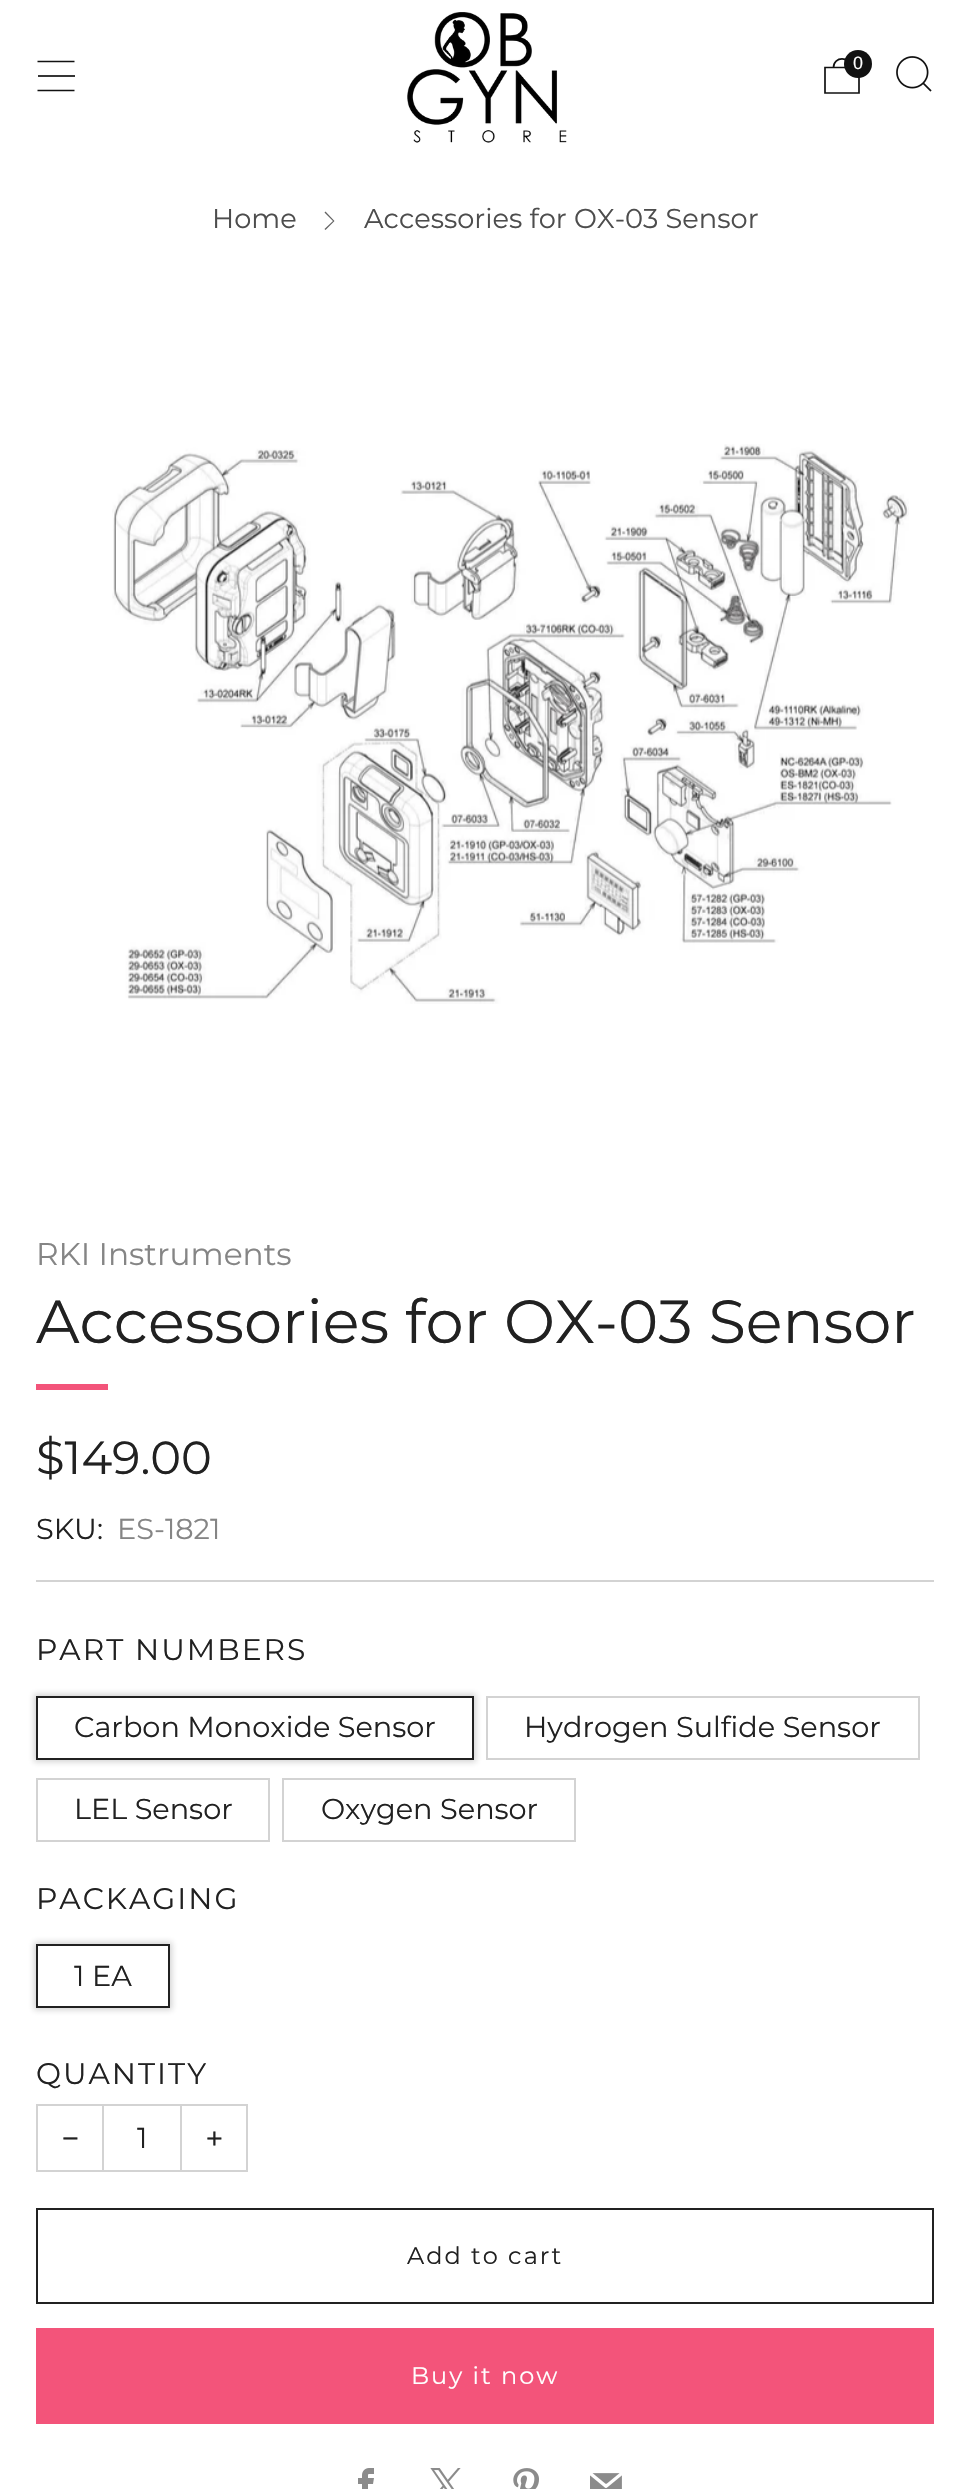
#include "include/core/SkBlurTypes.h"
#include "include/core/SkCanvas.h"
#include "include/core/SkData.h"
#include "include/core/SkFont.h"
#include "include/core/SkFontMgr.h"
#include "include/core/SkImage.h"
#include "include/core/SkMaskFilter.h"
#include "include/core/SkPaint.h"
#include "include/core/SkPathBuilder.h"
#include "include/core/SkTextBlob.h"
#include "include/effects/SkDashPathEffect.h"
#include "include/effects/SkGradientShader.h"
#include "include/utils/SkParsePath.h"

extern sk_sp<SkFontMgr> fontMgr;

void draw(SkCanvas* canvas) {
    SkPaint p;
    p.setAntiAlias(true);
    auto font = [&](const char* family, int weight, float size, bool italic = false) {
        SkFontStyle style(weight, SkFontStyle::kNormal_Width,
            italic ? SkFontStyle::kItalic_Slant : SkFontStyle::kUpright_Slant);
        SkFont result(fontMgr->matchFamilyStyle(family, style), size);
        result.setSubpixel(true);
        return result;
    };
    auto drawTracked = [&](const char* s, float x, float y, const SkFont& font, const SkPaint& ink, float letter, float word) {
        std::vector<SkGlyphID> glyphs(font.countText(s, strlen(s), SkTextEncoding::kUTF8));
        std::vector<float> xs(glyphs.size());
        font.textToGlyphs(s, strlen(s), SkTextEncoding::kUTF8, glyphs);
        font.getXPos(glyphs, xs, x);
        float extra = 0;
        for (size_t i = 0; i < glyphs.size(); i++) {
            xs[i] += extra;
            extra += letter + word * (glyphs[i] == font.unicharToGlyph(' '));
        }
        canvas->drawTextBlob(SkTextBlob::MakeFromPosHGlyphs(glyphs, xs, y, font), 0, 0, ink);
    };
    auto drawPhoto = [&](const char* path, float l, float t, float r, float b) {
        auto image = SkImages::DeferredFromEncodedData(SkData::MakeFromFileName(path));
        canvas->drawImageRect(image, SkRect::MakeLTRB(l, t, r, b), SkSamplingOptions());
    };
    canvas->clear(0xFFFFFFFF);
    p.setStyle(SkPaint::kStroke_Style);
    p.setStrokeWidth(1.7f);
    p.setColor(0xFF111111);
    canvas->drawPath(SkPathBuilder().moveTo(37.5f, 61.5f).lineTo(74.5f, 61.5f).detach(), p);
    p.setStyle(SkPaint::kFill_Style);
    p.setColor(0xFF353535);
    canvas->drawRect(SkRect::MakeLTRB(38, 75, 75, 77), p);
    p.setStyle(SkPaint::kStroke_Style);
    p.setColor(0xFF111111);
    canvas->drawPath(SkPathBuilder().moveTo(37.5f, 90.5f).lineTo(74.5f, 90.5f).detach(), p);
    drawPhoto("media/1.png", 407, 12, 567, 143);
    canvas->drawPath(SkPathBuilder().moveTo(825, 67.5f).lineTo(859, 67.5f).lineTo(859, 93).lineTo(825, 93).close().moveTo(850.5f, 67.5f).cubicTo(850.5f, 56, 833.5f, 56, 833.5f, 67.5f).detach(), p);
    p.setStyle(SkPaint::kFill_Style);
    canvas->drawCircle(858, 64, 14, p);
    auto font1 = font("Liberation Sans", 400, 18);
    p.setColor(0xFFFFFFFF);
    canvas->drawString("0", 853, 69, font1, p);
    drawPhoto("media/2.png", 896, 56, 932, 92);
    auto font2 = font("Montserrat", 400, 27.25f);
    p.setColor(0xFF4D4D4D);
    canvas->drawString("Home", 212, 228, font2, p);
    p.setColor(0xFF646464);
    canvas->drawPath(SkPathBuilder().moveTo(324.5f, 229).lineTo(325.5f, 230).lineTo(334.5f, 221).lineTo(325.5f, 211.5f).lineTo(324.5f, 212.5f).lineTo(333, 221).close().detach(), p);
    p.setColor(0xFF4D4D4D);
    canvas->drawString("Accessories for OX-03 Sensor", 364, 228, font2, p);
    drawPhoto("media/3.png", 112, 444, 909, 1004);
    auto font3 = font("Montserrat", 400, 31.25f);
    p.setColor(0xFF858585);
    canvas->drawString("RKI Instruments", 36, 1265, font3, p);
    auto font4 = font("Montserrat", 400, 60.75f);
    p.setColor(0xFF212121);
    canvas->drawString("Accessories for OX-03 Sensor", 36, 1343, font4, p);
    p.setColor(0xFFF3547A);
    canvas->drawRect(SkRect::MakeLTRB(36, 1384, 108, 1390), p);
    auto font5 = font("Montserrat", 400, 46.5f);
    p.setColor(0xFF212121);
    canvas->drawString("$149.00", 36, 1474, font5, p);
    auto font6 = font("Montserrat", 400, 28.75f);
    canvas->drawString("SKU:", 36, 1539, font6, p);
    p.setColor(0xFF858585);
    canvas->drawString("ES-1821", 117, 1539, font6, p);
    p.setColor(0xFFD3D3D3);
    canvas->drawRect(SkRect::MakeLTRB(36, 1580, 934, 1582), p);
    auto font7 = font("Montserrat", 400, 29.75f);
    p.setColor(0xFF212121);
    drawTracked("PART NUMBERS", 36, 1660, font7, p, 2, 0);
    canvas->save();
    canvas->clipPath(SkPathBuilder(SkPathFillType::kEvenOdd).moveTo(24, 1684).lineTo(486, 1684).lineTo(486, 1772).lineTo(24, 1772).close().moveTo(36, 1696).lineTo(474, 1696).lineTo(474, 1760).lineTo(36, 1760).close().detach(), true);
    p.setColor(0x33212121);
    p.setMaskFilter(SkMaskFilter::MakeBlur(kNormal_SkBlurStyle, 3));
    canvas->drawRect(SkRect::MakeLTRB(34, 1694, 476, 1762), p);
    p.setMaskFilter(nullptr);
    canvas->restore();
    p.setStyle(SkPaint::kStroke_Style);
    p.setStrokeWidth(2);
    p.setColor(0xFF212121);
    canvas->drawRect(SkRect::MakeLTRB(37, 1697, 473, 1759), p);
    p.setStyle(SkPaint::kFill_Style);
    canvas->drawString("Carbon Monoxide Sensor", 74, 1737, font6, p);
    p.setStyle(SkPaint::kStroke_Style);
    p.setColor(0xFFD3D3D3);
    canvas->drawRect(SkRect::MakeLTRB(487, 1697, 919, 1759), p);
    p.setStyle(SkPaint::kFill_Style);
    p.setColor(0xFF212121);
    canvas->drawString("Hydrogen Sulfide Sensor", 524, 1737, font6, p);
    p.setStyle(SkPaint::kStroke_Style);
    p.setColor(0xFFD3D3D3);
    canvas->drawRect(SkRect::MakeLTRB(37, 1779, 269, 1841), p);
    p.setStyle(SkPaint::kFill_Style);
    p.setColor(0xFF212121);
    canvas->drawString("LEL Sensor", 74, 1819, font6, p);
    p.setStyle(SkPaint::kStroke_Style);
    p.setColor(0xFFD3D3D3);
    canvas->drawRect(SkRect::MakeLTRB(283, 1779, 575, 1841), p);
    p.setStyle(SkPaint::kFill_Style);
    p.setColor(0xFF212121);
    canvas->drawString("Oxygen Sensor", 321, 1819, font6, p);
    drawTracked("PACKAGING", 36, 1909, font7, p, 2, 0);
    canvas->save();
    canvas->clipPath(SkPathBuilder(SkPathFillType::kEvenOdd).moveTo(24, 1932).lineTo(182, 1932).lineTo(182, 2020).lineTo(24, 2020).close().moveTo(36, 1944).lineTo(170, 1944).lineTo(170, 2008).lineTo(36, 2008).close().detach(), true);
    p.setColor(0x33212121);
    p.setMaskFilter(SkMaskFilter::MakeBlur(kNormal_SkBlurStyle, 3));
    canvas->drawRect(SkRect::MakeLTRB(34, 1942, 172, 2010), p);
    p.setMaskFilter(nullptr);
    canvas->restore();
    p.setStyle(SkPaint::kStroke_Style);
    p.setColor(0xFF212121);
    canvas->drawRect(SkRect::MakeLTRB(37, 1945, 169, 2007), p);
    p.setStyle(SkPaint::kFill_Style);
    canvas->drawString("1 EA", 74, 1986, font6, p);
    drawTracked("QUANTITY", 36, 2084, font7, p, 2, 0);
    p.setStyle(SkPaint::kStroke_Style);
    p.setColor(0xFFD3D3D3);
    canvas->drawRect(SkRect::MakeLTRB(37, 2105, 247, 2171), p);
    auto font8 = font("Liberation Sans", 400, 28.75f);
    p.setStyle(SkPaint::kFill_Style);
    p.setColor(0xFF212121);
    canvas->drawString("−", 62, 2148, font8, p);
    p.setColor(0xFFD3D3D3);
    canvas->drawRect(SkRect::MakeLTRB(180, 2106, 182, 2170), p);
    canvas->drawRect(SkRect::MakeLTRB(102, 2106, 104, 2170), p);
    p.setColor(0xFF212121);
    canvas->drawString("1", 137, 2148, font6, p);
    canvas->drawString("+", 206, 2148, font8, p);
    p.setStyle(SkPaint::kStroke_Style);
    canvas->drawRect(SkRect::MakeLTRB(37, 2209, 933, 2303), p);
    auto font9 = font("Montserrat", 400, 24);
    p.setStyle(SkPaint::kFill_Style);
    drawTracked("Add to cart", 407, 2264, font9, p, 2, 0);
    p.setColor(0xFFF3547A);
    canvas->drawRect(SkRect::MakeLTRB(36, 2328, 934, 2424), p);
    p.setColor(0xFFFFFFFF);
    drawTracked("Buy it now", 411, 2384, font9, p, 2, 0);
    drawPhoto("media/4.png", 358, 2468, 374, 2489);
    drawPhoto("media/5.png", 430, 2468, 461, 2489);
    drawPhoto("media/6.png", 513, 2468, 539, 2489);
    drawPhoto("media/7.png", 590, 2473, 622, 2489);
}
